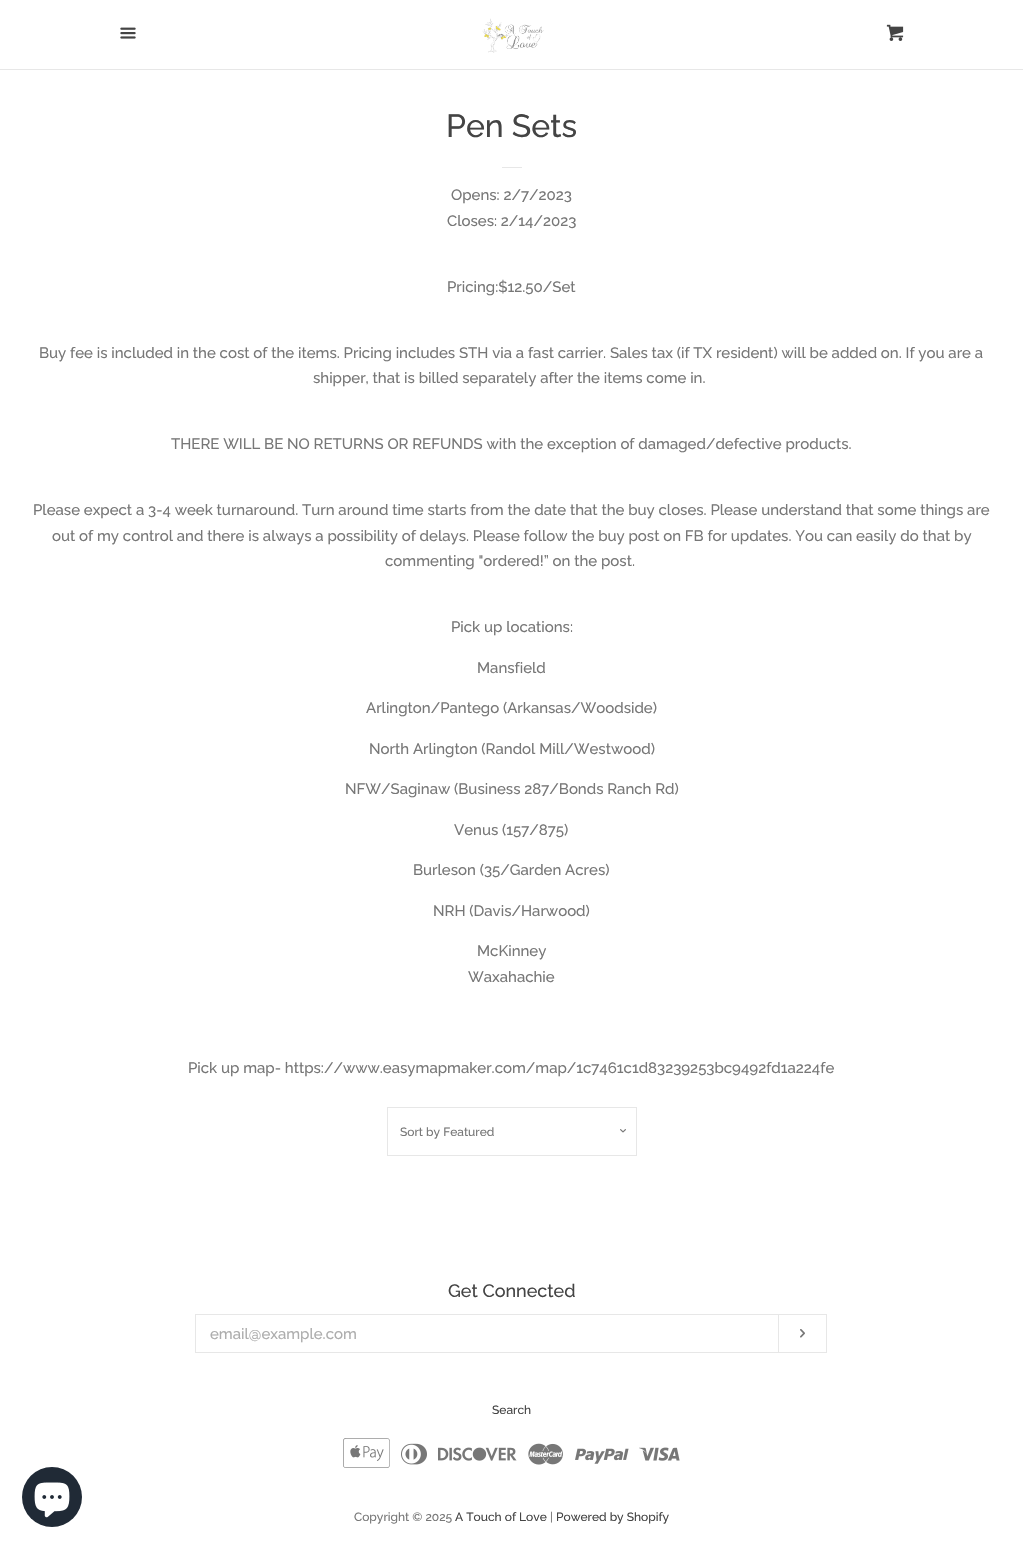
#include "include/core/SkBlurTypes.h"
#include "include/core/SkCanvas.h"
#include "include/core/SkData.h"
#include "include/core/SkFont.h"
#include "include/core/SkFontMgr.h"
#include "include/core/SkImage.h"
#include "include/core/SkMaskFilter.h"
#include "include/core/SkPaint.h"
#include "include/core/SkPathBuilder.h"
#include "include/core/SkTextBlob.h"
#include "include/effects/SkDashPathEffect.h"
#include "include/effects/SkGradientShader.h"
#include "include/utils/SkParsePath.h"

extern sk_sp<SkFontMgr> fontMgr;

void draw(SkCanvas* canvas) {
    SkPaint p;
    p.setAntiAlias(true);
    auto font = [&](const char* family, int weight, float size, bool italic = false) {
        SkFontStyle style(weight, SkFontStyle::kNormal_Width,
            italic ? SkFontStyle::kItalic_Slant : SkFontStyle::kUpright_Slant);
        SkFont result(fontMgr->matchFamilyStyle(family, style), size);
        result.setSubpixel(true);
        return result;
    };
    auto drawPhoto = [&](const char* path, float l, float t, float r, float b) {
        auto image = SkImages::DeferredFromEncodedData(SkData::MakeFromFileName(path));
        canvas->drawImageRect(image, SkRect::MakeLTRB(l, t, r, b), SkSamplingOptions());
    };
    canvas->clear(0xFFFFFFFF);
    p.setColor(0xFFE7E7E7);
    canvas->drawRect(SkRect::MakeLTRB(0, 69, 1023, 70), p);
    drawPhoto("media/1.png", 120, 27, 136, 39);
    drawPhoto("media/2.png", 482, 18, 544, 53);
    drawPhoto("media/3.png", 886, 24, 904, 41);
    auto font1 = font("Raleway", 500, 32);
    p.setColor(0xFF444444);
    canvas->drawString("Pen Sets", 446, 137, font1, p);
    p.setColor(0xFFE7E7E7);
    canvas->drawRect(SkRect::MakeLTRB(502, 167, 522, 168), p);
    auto font2 = font("Raleway", 500, 15);
    p.setColor(0xFF777777);
    {
        const struct { const char* s; float x, y; } items[] = {
            {"Opens: 2/7/2023", 451, 200},
            {"Closes: 2/14/2023", 447, 226},
            {"Pricing:$12.50/Set", 447, 292},
            {"Buy fee is included in the cost of the items. Pricing includes STH via a fast carrier. Sales tax (if TX resident) will be added on. If you are a", 39, 358},
            {"shipper, that is billed separately after the items come in.", 313, 383},
            {"THERE WILL BE NO RETURNS OR REFUNDS with the exception of damaged/defective products.", 171, 449},
            {"Please expect a 3-4 week turnaround. Turn around time starts from the date that the buy closes. Please understand that some things are", 33, 515},
            {"out of my control and there is always a possibility of delays. Please follow the buy post on FB for updates. You can easily do that by", 52, 541},
            {"commenting \"ordered!” on the post.", 385, 566},
            {"Pick up locations:", 451, 632},
            {"Mansfield", 477, 673},
            {"Arlington/Pantego (Arkansas/Woodside)", 366, 713},
            {"North Arlington (Randol Mill/Westwood)", 369, 754},
            {"NFW/Saginaw (Business 287/Bonds Ranch Rd)", 345, 794},
            {"Venus (157/875)", 454, 835},
            {"Burleson (35/Garden Acres)", 413, 875},
            {"NRH (Davis/Harwood)", 433, 916},
            {"McKinney", 477, 956},
            {"Waxahachie", 468, 982},
            {"Pick up map- https://www.easymapmaker.com/map/1c7461c1d83239253bc9492fd1a224fe", 188, 1073},
        };
        for (auto [s, x, y] : items) {
            canvas->drawString(s, x, y, font2, p);
        }
    }
    drawPhoto("media/4.png", 620, 1129, 626, 1133);
    p.setStyle(SkPaint::kStroke_Style);
    p.setStrokeWidth(1);
    p.setColor(0xFFE7E7E7);
    canvas->drawRect(SkRect::MakeLTRB(387.5f, 1107.5f, 636.5f, 1155.5f), p);
    auto font3 = font("Raleway", 500, 12);
    p.setStyle(SkPaint::kFill_Style);
    p.setColor(0xFF777777);
    canvas->drawString("Sort by Featured", 400, 1136, font3, p);
    auto font4 = font("Raleway", 500, 18);
    p.setColor(0xFF444444);
    canvas->drawString("Get Connected", 448, 1297, font4, p);
    p.setStyle(SkPaint::kStroke_Style);
    p.setColor(0xFFE7E7E7);
    canvas->drawRect(SkRect::MakeLTRB(195.5f, 1314.5f, 826.5f, 1352.5f), p);
    p.setStyle(SkPaint::kFill_Style);
    canvas->drawRect(SkRect::MakeLTRB(778, 1315, 779, 1352), p);
    p.setColor(0xFFADADAD);
    canvas->drawString("email@example.com", 210, 1339, font2, p);
    drawPhoto("media/5.png", 800, 1329, 805, 1338);
    p.setColor(0xFF444444);
    canvas->drawString("Search", 492, 1414, font3, p);
    drawPhoto("media/6.png", 343, 1438, 390, 1468);
    drawPhoto("media/7.png", 401, 1443, 427, 1465);
    drawPhoto("media/8.png", 438, 1447, 517, 1461);
    drawPhoto("media/9.png", 528, 1443, 563, 1465);
    drawPhoto("media/10.png", 575, 1448, 629, 1464);
    drawPhoto("media/11.png", 639, 1447, 680, 1461);
    p.setColor(0xFF777777);
    canvas->drawString("Copyright © 2025", 354, 1521, font3, p);
    p.setColor(0xFF444444);
    canvas->drawString("A Touch of Love", 455, 1521, font3, p);
    p.setColor(0xFF777777);
    canvas->drawString("|", 550, 1521, font3, p);
    p.setColor(0xFF444444);
    canvas->drawString("Powered by Shopify", 556, 1521, font3, p);
    p.setColor(0xFF202A36);
    canvas->drawCircle(52, 1497, 30, p);
    drawPhoto("media/12.png", 34, 1482, 70, 1518);
}
